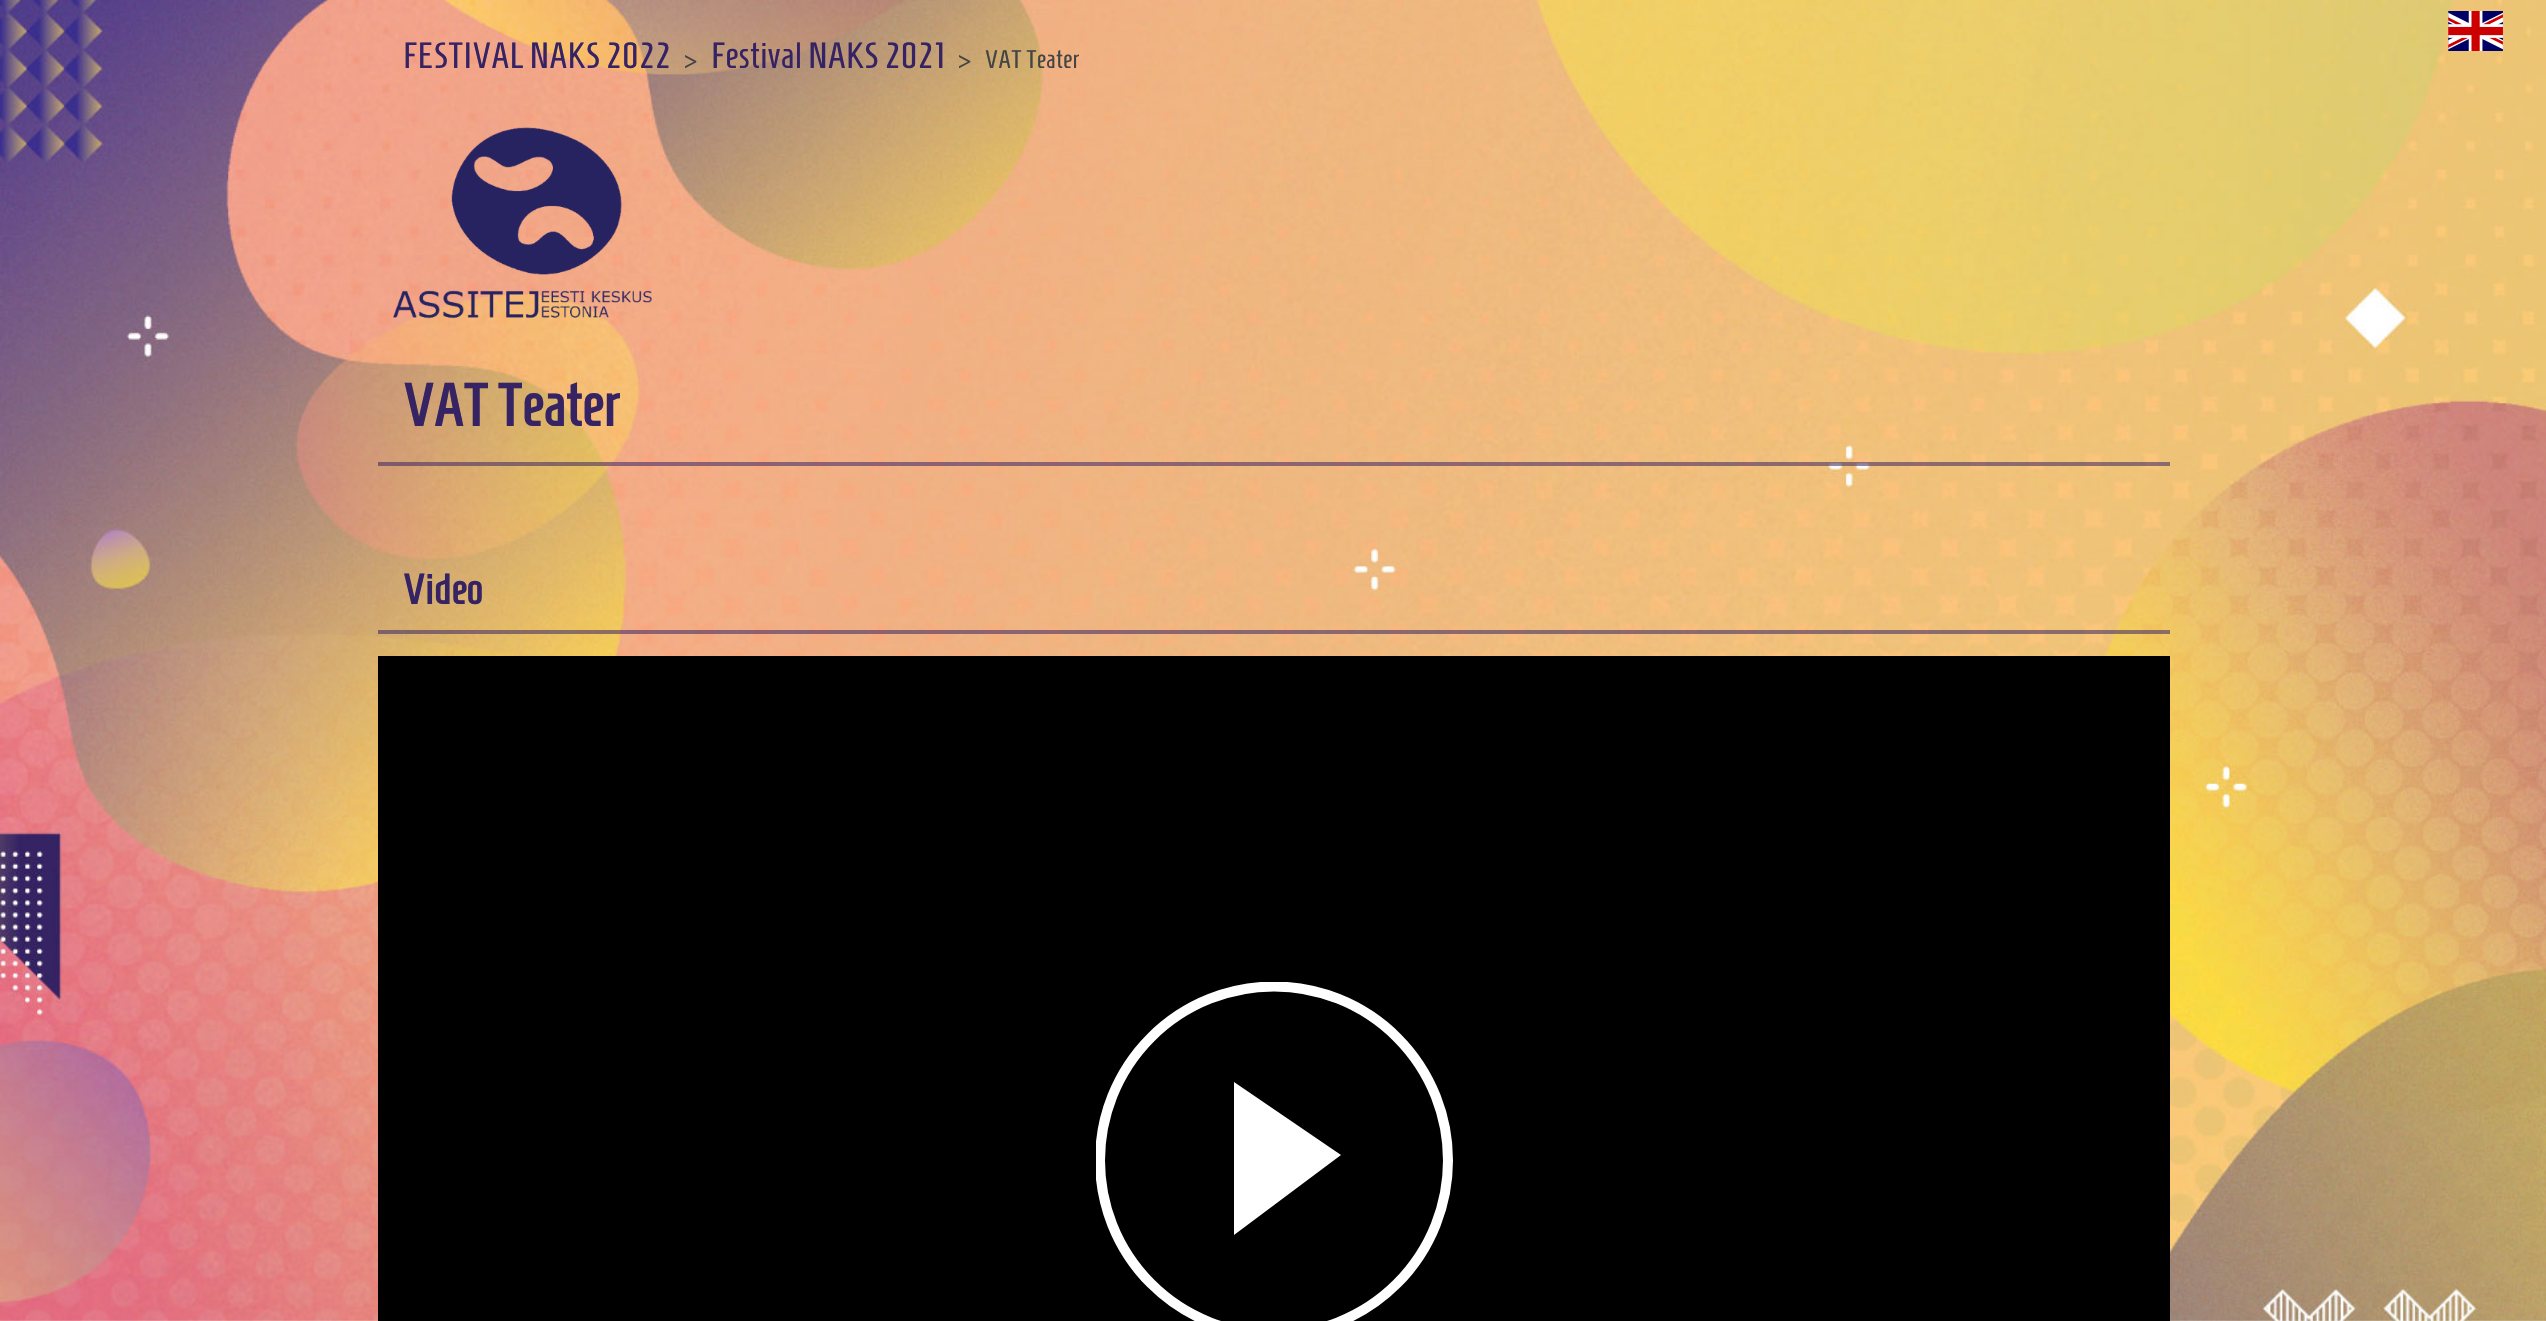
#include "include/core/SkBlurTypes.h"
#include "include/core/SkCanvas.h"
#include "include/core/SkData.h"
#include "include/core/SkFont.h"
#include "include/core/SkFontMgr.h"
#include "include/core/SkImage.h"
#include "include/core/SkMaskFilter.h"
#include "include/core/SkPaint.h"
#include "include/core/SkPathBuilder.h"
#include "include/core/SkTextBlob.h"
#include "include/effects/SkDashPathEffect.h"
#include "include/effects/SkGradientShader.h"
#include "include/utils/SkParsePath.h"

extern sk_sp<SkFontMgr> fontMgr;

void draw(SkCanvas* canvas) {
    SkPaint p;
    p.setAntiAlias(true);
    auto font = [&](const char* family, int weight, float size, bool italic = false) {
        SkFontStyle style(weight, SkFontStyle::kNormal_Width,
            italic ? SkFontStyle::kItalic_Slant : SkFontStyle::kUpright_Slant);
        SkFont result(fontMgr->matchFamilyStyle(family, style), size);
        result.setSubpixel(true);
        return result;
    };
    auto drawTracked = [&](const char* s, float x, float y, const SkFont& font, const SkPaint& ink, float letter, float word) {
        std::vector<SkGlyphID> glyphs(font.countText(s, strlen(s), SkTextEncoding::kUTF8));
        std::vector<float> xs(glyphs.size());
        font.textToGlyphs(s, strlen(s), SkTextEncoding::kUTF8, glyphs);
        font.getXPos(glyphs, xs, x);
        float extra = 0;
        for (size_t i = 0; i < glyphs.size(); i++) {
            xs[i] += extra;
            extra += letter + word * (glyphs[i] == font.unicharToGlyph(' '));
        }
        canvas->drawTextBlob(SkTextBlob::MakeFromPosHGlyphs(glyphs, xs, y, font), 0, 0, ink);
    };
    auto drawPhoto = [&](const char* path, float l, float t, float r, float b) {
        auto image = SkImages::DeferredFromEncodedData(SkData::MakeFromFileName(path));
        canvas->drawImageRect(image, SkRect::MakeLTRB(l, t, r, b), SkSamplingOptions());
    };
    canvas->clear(0xFFFFFFFF);
    drawPhoto("media/1.png", 0, 0, 2546, 1321);
    drawPhoto("media/2.png", 2448, 11, 2503, 51);
    auto font1 = font("Homenaje", 400, 36.5f);
    p.setColor(0xFF362363);
    drawTracked("FESTIVAL NAKS 2022", 403, 68, font1, p, 0.4f, 0);
    auto font2 = font("Homenaje", 400, 25.5f);
    p.setColor(0xFF444444);
    drawTracked(">", 684, 68, font2, p, 0.4f, 0);
    p.setColor(0xFF362363);
    drawTracked("Festival NAKS 2021", 711, 68, font1, p, 0.4f, 0);
    p.setColor(0xFF444444);
    drawTracked(">", 958, 68, font2, p, 0.4f, 0);
    drawTracked("VAT Teater", 985, 68, font2, p, 0.4f, 0);
    drawPhoto("media/3.png", 393, 127, 652, 319);
    p.setColor(0x8C362363);
    canvas->drawRect(SkRect::MakeLTRB(378, 462, 2170, 466), p);
    auto font3 = font("Homenaje", 700, 59.5f);
    p.setColor(0xFF362363);
    drawTracked("VAT Teater", 403, 426, font3, p, 0.5f, 0);
    p.setColor(0x8C362363);
    canvas->drawRect(SkRect::MakeLTRB(378, 630, 2170, 634), p);
    auto font4 = font("Homenaje", 700, 42);
    p.setColor(0xFF362363);
    drawTracked("Video", 403, 604, font4, p, 0.5f, 0);
    p.setColor(0xFF000000);
    canvas->drawRect(SkRect::MakeLTRB(378, 656, 2170, 1321), p);
    canvas->save();
    canvas->clipRect(SkRect::MakeLTRB(1096, 982, 1453, 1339));
    p.setStyle(SkPaint::kStroke_Style);
    p.setStrokeWidth(10);
    p.setColor(0xFFFFFFFF);
    canvas->drawCircle(1274, 1160.5f, 174, p);
    canvas->restore();
    p.setStyle(SkPaint::kFill_Style);
    canvas->drawPath(SkPathBuilder(SkPathFillType::kEvenOdd).moveTo(1234, 1235).lineTo(1234, 1082).lineTo(1341, 1155).close().detach(), p);
}
